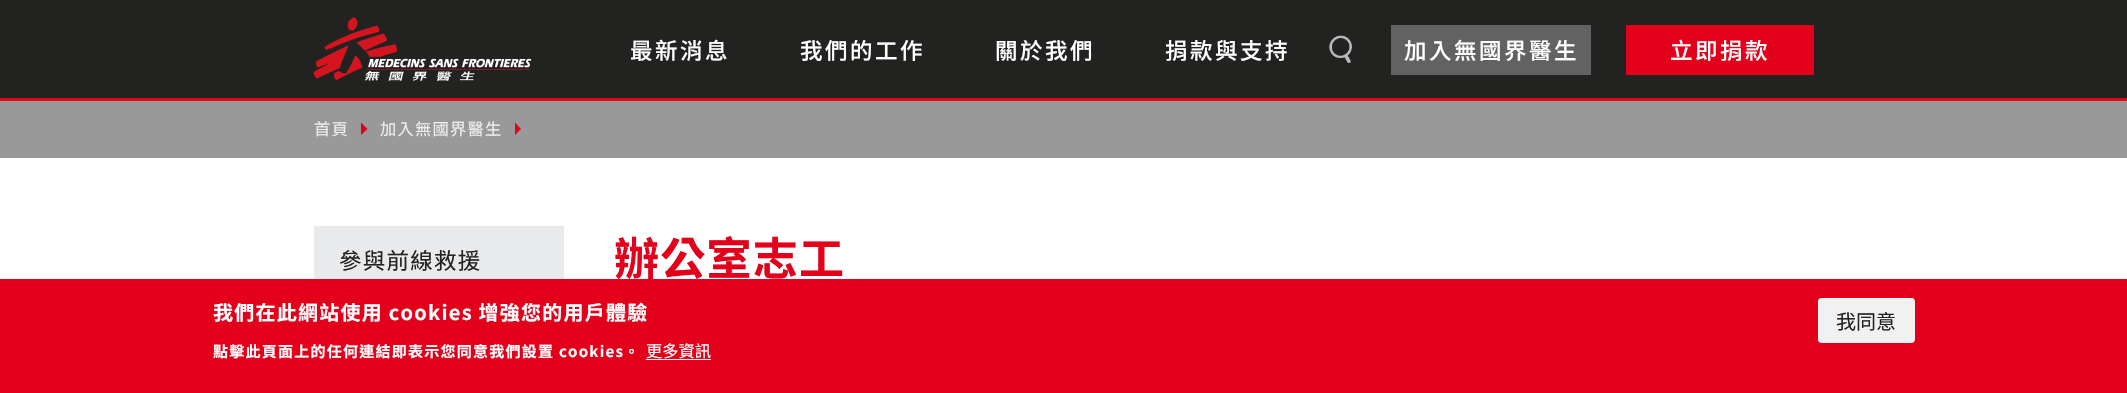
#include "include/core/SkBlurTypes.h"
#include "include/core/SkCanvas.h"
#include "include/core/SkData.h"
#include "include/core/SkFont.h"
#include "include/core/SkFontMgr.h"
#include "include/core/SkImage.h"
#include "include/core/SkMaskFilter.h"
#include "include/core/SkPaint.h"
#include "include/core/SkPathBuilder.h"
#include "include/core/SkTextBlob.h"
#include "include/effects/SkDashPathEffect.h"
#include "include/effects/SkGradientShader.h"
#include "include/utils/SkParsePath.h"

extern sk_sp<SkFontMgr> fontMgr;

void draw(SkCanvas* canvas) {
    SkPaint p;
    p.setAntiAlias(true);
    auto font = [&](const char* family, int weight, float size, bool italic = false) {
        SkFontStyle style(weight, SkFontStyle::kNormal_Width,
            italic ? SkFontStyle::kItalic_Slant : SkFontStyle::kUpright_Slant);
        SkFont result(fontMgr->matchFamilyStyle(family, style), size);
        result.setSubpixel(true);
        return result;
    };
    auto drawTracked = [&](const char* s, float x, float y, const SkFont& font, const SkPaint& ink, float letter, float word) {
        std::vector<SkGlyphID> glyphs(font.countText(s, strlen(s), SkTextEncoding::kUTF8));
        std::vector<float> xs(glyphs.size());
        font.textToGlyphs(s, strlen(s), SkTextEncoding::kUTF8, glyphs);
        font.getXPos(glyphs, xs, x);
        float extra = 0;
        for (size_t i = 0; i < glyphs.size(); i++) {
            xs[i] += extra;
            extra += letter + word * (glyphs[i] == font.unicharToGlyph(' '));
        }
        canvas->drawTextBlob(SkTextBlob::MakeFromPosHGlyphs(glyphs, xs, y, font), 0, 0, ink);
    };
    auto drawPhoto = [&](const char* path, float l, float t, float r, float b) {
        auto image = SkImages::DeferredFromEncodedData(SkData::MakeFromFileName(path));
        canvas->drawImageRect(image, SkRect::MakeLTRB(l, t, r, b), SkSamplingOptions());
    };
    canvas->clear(0xFFFFFFFF);
    p.setColor(0xFF222221);
    canvas->drawRect(SkRect::MakeLTRB(0, 0, 2127, 98), p);
    p.setColor(0xFFE2001A);
    canvas->drawRect(SkRect::MakeLTRB(0, 98, 2127, 101), p);
    drawPhoto("media/1.png", 313, 17, 532, 81);
    auto font1 = font("Noto Sans CJK TC", 500, 22.5f);
    p.setColor(0xFFFFFFFF);
    {
        const struct { const char* s; float x, y; } items[] = {
            {"最新消息", 630, 59},
            {"我們的工作", 800, 59},
            {"關於我們", 995, 59},
            {"捐款與支持", 1165, 59},
        };
        for (auto [s, x, y] : items) {
            drawTracked(s, x, y, font1, p, 2.5f, 0);
        }
    }
    drawPhoto("media/2.png", 1329, 35, 1352, 63);
    p.setColor(0xFF626262);
    canvas->drawRect(SkRect::MakeLTRB(1391, 25, 1591, 75), p);
    p.setColor(0xFFFFFFFF);
    drawTracked("加入無國界醫生", 1404, 59, font1, p, 2.5f, 0);
    p.setColor(0xFFE2001A);
    canvas->drawRect(SkRect::MakeLTRB(1626, 25, 1814, 75), p);
    p.setColor(0xFFFFFFFF);
    drawTracked("立即捐款", 1670, 59, font1, p, 2.5f, 0);
    p.setColor(0xFF999999);
    canvas->drawRect(SkRect::MakeLTRB(0, 101, 2127, 158), p);
    auto font2 = font("Noto Sans CJK TC", 400, 16.25f);
    p.setColor(0xFFEEEEEE);
    drawTracked("首頁", 314, 135, font2, p, 1.25f, 0);
    p.setColor(0xFFE2001A);
    canvas->drawPath(SkPathBuilder().moveTo(361, 135).lineTo(361, 122.5f).lineTo(367.5f, 129).close().detach(), p);
    p.setColor(0xFFEEEEEE);
    drawTracked("加入無國界醫生", 380, 135, font2, p, 1.25f, 0);
    p.setColor(0xFFE2001A);
    canvas->drawPath(SkPathBuilder().moveTo(515, 135).lineTo(515, 122.5f).lineTo(521, 129).close().detach(), p);
    p.setColor(0xFFE9EAEC);
    canvas->drawRect(SkRect::MakeLTRB(314, 226, 564, 279), p);
    auto font3 = font("Noto Sans CJK TC", 400, 22.5f);
    p.setColor(0xFF222221);
    drawTracked("參與前線救援", 339, 269, font3, p, 1.25f, 0);
    auto font4 = font("Noto Sans CJK TC", 700, 45);
    p.setColor(0xFFE2001A);
    drawTracked("辦公室志工", 614, 275, font4, p, 1.25f, 0);
    canvas->drawRect(SkRect::MakeLTRB(0, 279, 2127, 393), p);
    auto font5 = font("Noto Sans CJK TC", 700, 20);
    p.setColor(0xFFFFFFFF);
    drawTracked("我們在此網站使用 cookies 增強您的用戶體驗", 213, 320, font5, p, 1.25f, 0);
    auto font6 = font("Noto Sans CJK TC", 700, 15);
    drawTracked("點擊此頁面上的任何連結即表示您同意我們設置 cookies。", 213, 357, font6, p, 1.25f, 0);
    canvas->drawString("更多資訊", 646, 357, font2, p);
    canvas->drawRect(SkRect::MakeLTRB(646, 359, 711, 360), p);
    p.setColor(0xFFF1F1F1);
    canvas->drawRoundRect(SkRect::MakeLTRB(1818, 298, 1915, 343), 4, 4, p);
    p.setColor(0xFFFFFFFF);
    canvas->drawPath(SkPathBuilder().moveTo(1822, 299).lineTo(1914, 299).cubicTo(1913, 298, 1912, 298, 1911, 298).lineTo(1822, 298).cubicTo(1820, 298, 1818, 300, 1818, 302).lineTo(1818, 339).cubicTo(1818, 340, 1819, 341, 1819, 342).lineTo(1819, 308).cubicTo(1819, 306, 1817, 299, 1822, 299).close().detach(), p);
    auto font7 = font("Noto Sans CJK TC", 400, 20);
    p.setColor(0xFF222221);
    canvas->drawString("我同意", 1836, 329, font7, p);
}
